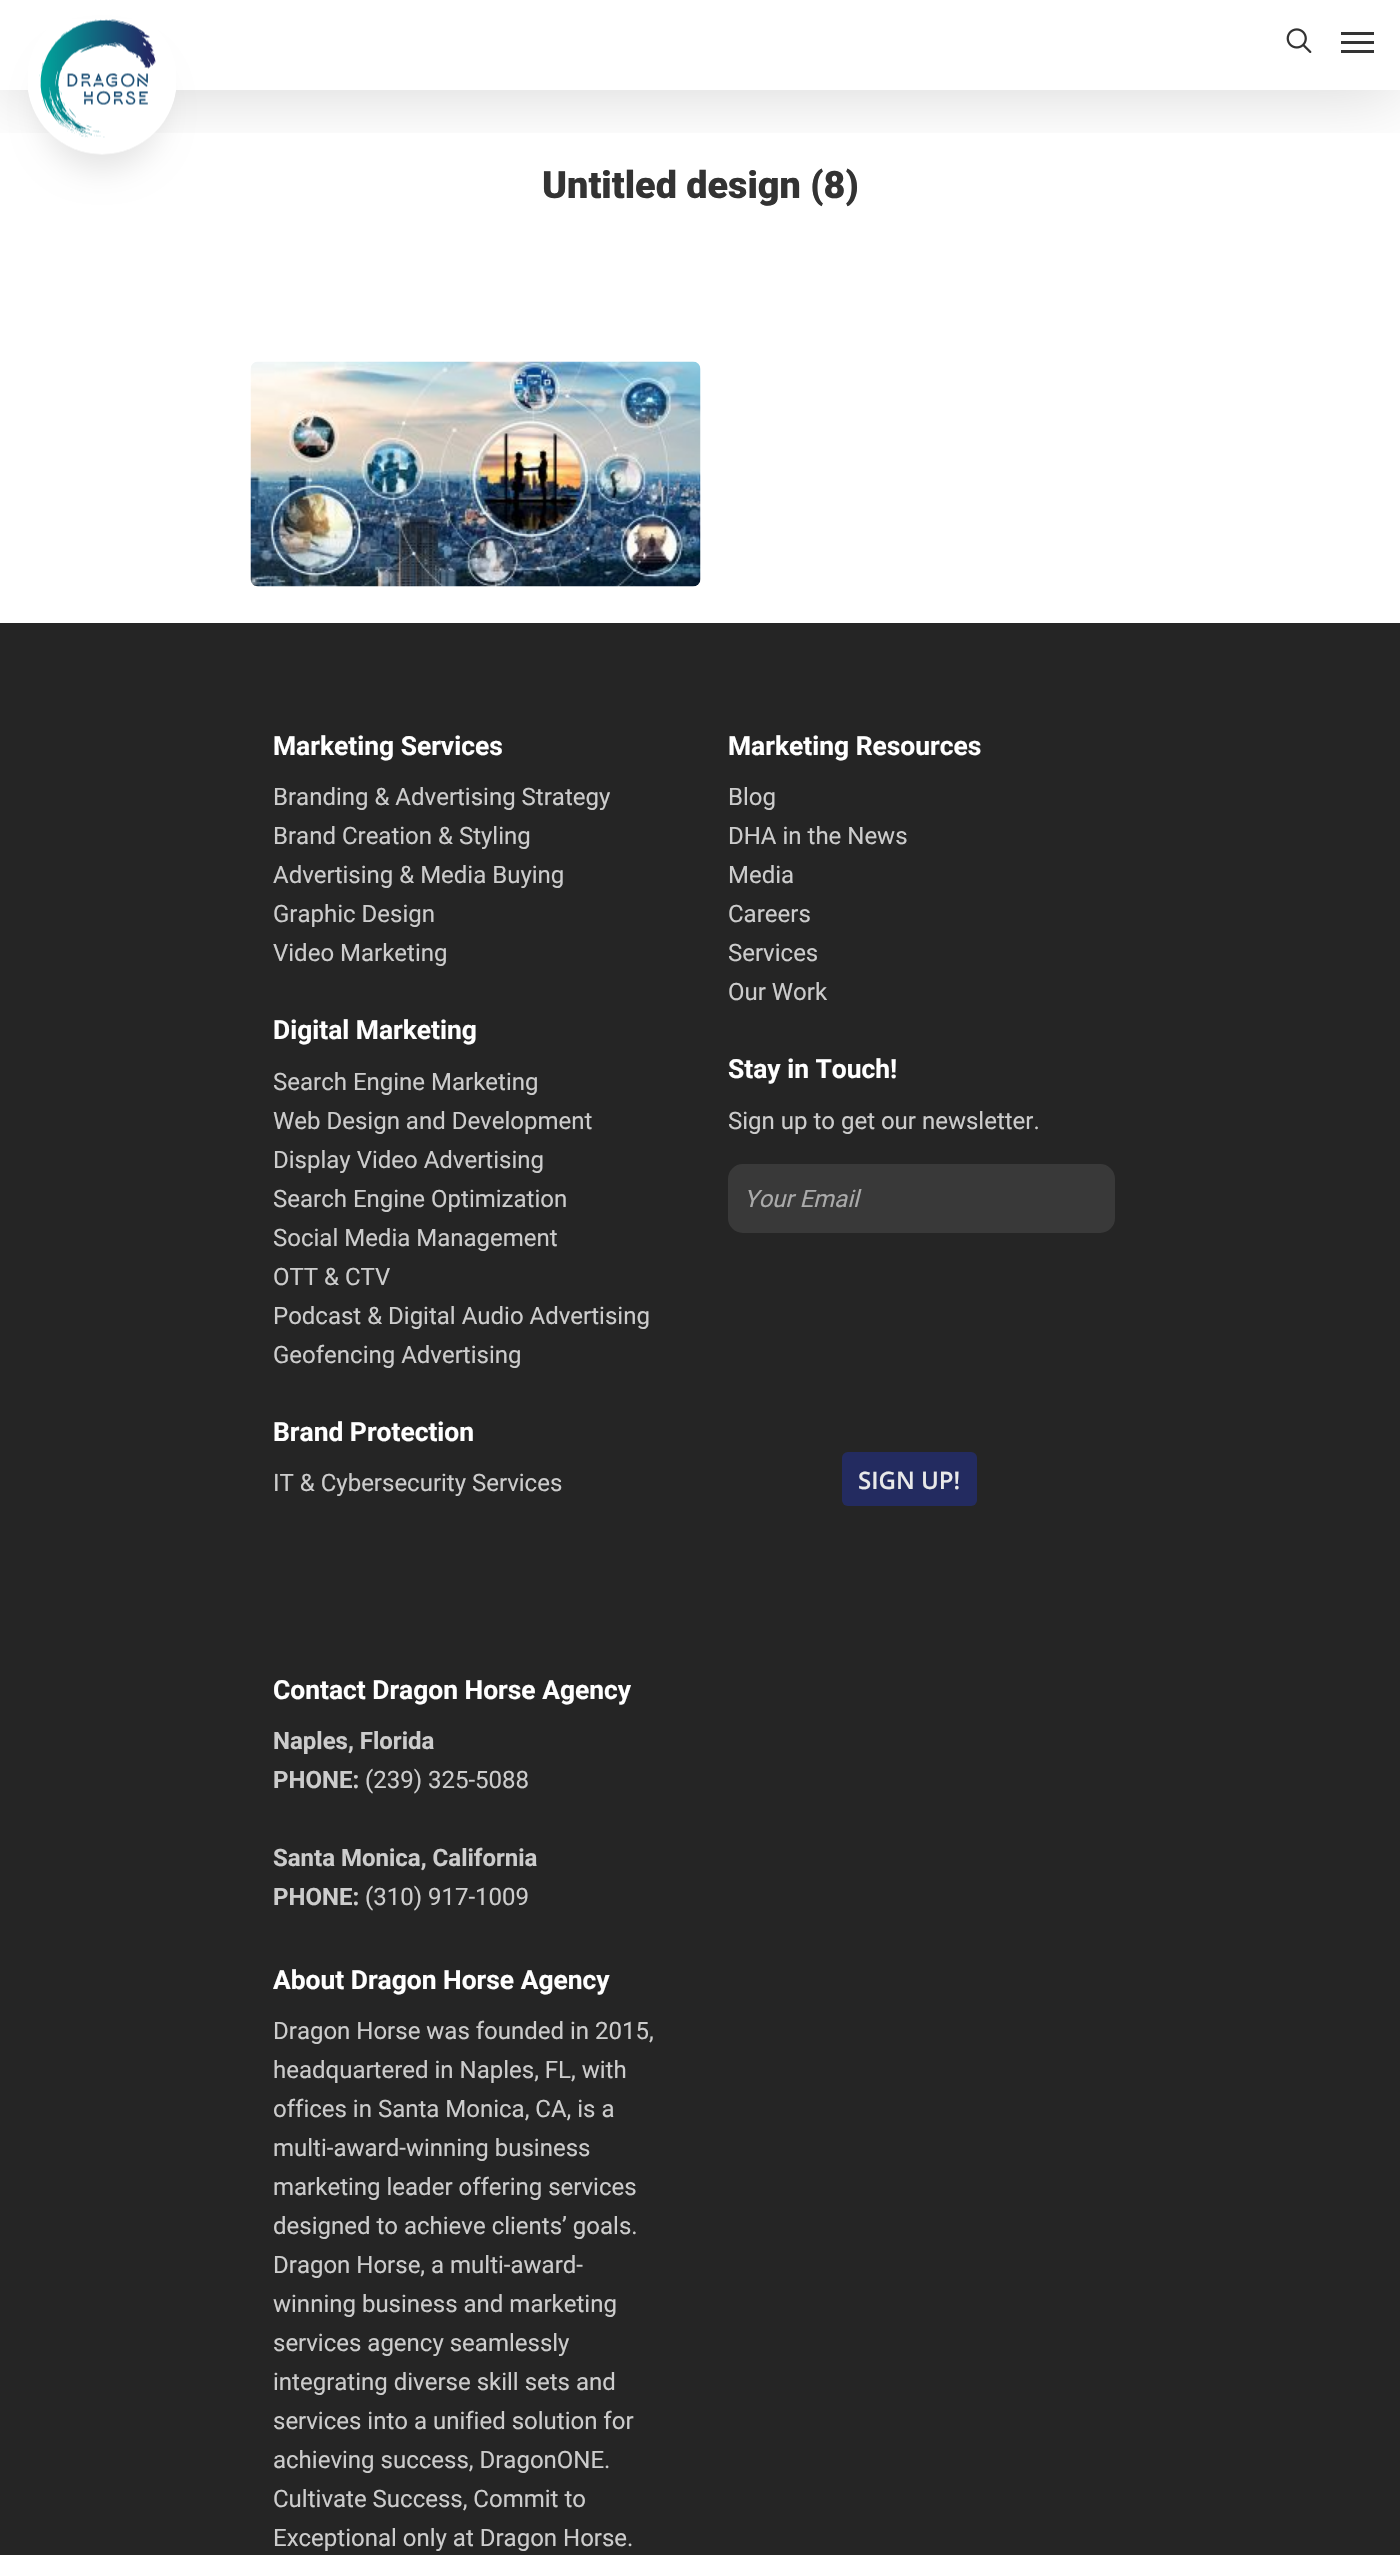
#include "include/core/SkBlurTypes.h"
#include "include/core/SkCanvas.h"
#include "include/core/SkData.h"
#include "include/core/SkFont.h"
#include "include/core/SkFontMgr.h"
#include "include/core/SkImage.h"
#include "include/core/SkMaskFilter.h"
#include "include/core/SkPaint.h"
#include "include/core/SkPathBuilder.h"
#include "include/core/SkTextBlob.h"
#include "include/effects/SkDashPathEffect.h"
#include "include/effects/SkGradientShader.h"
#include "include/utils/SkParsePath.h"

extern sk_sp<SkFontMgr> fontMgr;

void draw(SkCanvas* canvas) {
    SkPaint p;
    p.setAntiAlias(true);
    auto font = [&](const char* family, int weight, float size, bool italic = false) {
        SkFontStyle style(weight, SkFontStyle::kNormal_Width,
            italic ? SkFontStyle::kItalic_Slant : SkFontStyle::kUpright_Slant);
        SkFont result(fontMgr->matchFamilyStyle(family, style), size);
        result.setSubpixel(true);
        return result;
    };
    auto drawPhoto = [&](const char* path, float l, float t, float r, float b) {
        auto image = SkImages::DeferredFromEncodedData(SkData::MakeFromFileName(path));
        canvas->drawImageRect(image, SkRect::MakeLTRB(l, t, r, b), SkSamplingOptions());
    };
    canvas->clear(0xFFFFFFFF);
    canvas->save();
    canvas->clipRect(SkRect::MakeLTRB(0, 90, 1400, 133));
    p.setColor(0x26000000);
    p.setMaskFilter(SkMaskFilter::MakeBlur(kNormal_SkBlurStyle, 34));
    canvas->drawRect(SkRect::MakeLTRB(0, 5, 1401, 95), p);
    p.setMaskFilter(nullptr);
    canvas->restore();
    p.setColor(0x1A000000);
    p.setMaskFilter(SkMaskFilter::MakeBlur(kNormal_SkBlurStyle, 15));
    canvas->drawRoundRect(SkRect::MakeLTRB(42, 50, 162, 170), 60, 60, p);
    p.setMaskFilter(nullptr);
    drawPhoto("media/1.png", 28, 19, 176, 155);
    drawPhoto("media/2.png", 1286, 28, 1312, 53);
    {
        const struct { float l, t, r, b; SkColor color; } items[] = {
            {1341, 32, 1374, 35, 0xFF333333},
            {1341, 50, 1374, 53, 0xFF333333},
            {1341, 41, 1374, 44, 0xFF333333},
        };
        for (auto [l, t, r, b, color] : items) {
            p.setColor(color);
            canvas->drawRect(SkRect::MakeLTRB(l, t, r, b), p);
        }
    }
    auto font1 = font("Roboto", 900, 37.75f);
    canvas->drawString("Untitled design (8)", 542, 198, font1, p);
    drawPhoto("media/3.png", 250, 361, 701, 587);
    p.setColor(0xFF252525);
    canvas->drawRect(SkRect::MakeLTRB(0, 623, 1400, 2555), p);
    auto font2 = font("Roboto", 700, 26.4f);
    p.setColor(0xFFFFFFFF);
    canvas->drawString("Marketing Services", 273, 755, font2, p);
    auto font3 = font("Roboto", 400, 24);
    p.setColor(0xFFCCCCCC);
    {
        const struct { const char* s; float x, y; } items[] = {
            {"Branding & Advertising Strategy", 273, 805},
            {"Brand Creation & Styling", 273, 844},
            {"Advertising & Media Buying", 273, 883},
            {"Graphic Design", 273, 922},
            {"Video Marketing", 273, 961},
        };
        for (auto [s, x, y] : items) {
            canvas->drawString(s, x, y, font3, p);
        }
    }
    p.setColor(0xFFFFFFFF);
    canvas->drawString("Digital Marketing", 273, 1039, font2, p);
    p.setColor(0xFFCCCCCC);
    {
        const struct { const char* s; float x, y; } items[] = {
            {"Search Engine Marketing", 273, 1090},
            {"Web Design and Development", 273, 1129},
            {"Display Video Advertising", 273, 1168},
            {"Search Engine Optimization", 273, 1207},
            {"Social Media Management", 273, 1246},
            {"OTT & CTV", 273, 1285},
            {"Podcast & Digital Audio Advertising", 273, 1324},
            {"Geofencing Advertising", 273, 1363},
        };
        for (auto [s, x, y] : items) {
            canvas->drawString(s, x, y, font3, p);
        }
    }
    p.setColor(0xFFFFFFFF);
    canvas->drawString("Brand Protection", 273, 1441, font2, p);
    p.setColor(0xFFCCCCCC);
    canvas->drawString("IT & Cybersecurity Services", 273, 1491, font3, p);
    p.setColor(0xFFFFFFFF);
    canvas->drawString("Marketing Resources", 728, 755, font2, p);
    p.setColor(0xFFCCCCCC);
    {
        const struct { const char* s; float x, y; } items[] = {
            {"Blog", 728, 805},
            {"DHA in the News", 728, 844},
            {"Media", 728, 883},
            {"Careers", 728, 922},
            {"Services", 728, 961},
            {"Our Work", 728, 1000},
        };
        for (auto [s, x, y] : items) {
            canvas->drawString(s, x, y, font3, p);
        }
    }
    p.setColor(0xFFFFFFFF);
    canvas->drawString("Stay in Touch!", 728, 1078, font2, p);
    p.setColor(0xFFCCCCCC);
    canvas->drawString("Sign up to get our newsletter.", 728, 1129, font3, p);
    p.setColor(0xFF393939);
    canvas->drawRoundRect(SkRect::MakeLTRB(729, 1165, 1114, 1232), 14, 14, p);
    p.setStyle(SkPaint::kStroke_Style);
    p.setStrokeWidth(2);
    canvas->drawRoundRect(SkRect::MakeLTRB(729, 1165, 1114, 1232), 14, 14, p);
    auto font4 = font("Roboto", 400, 24, true);
    p.setStyle(SkPaint::kFill_Style);
    p.setColor(0xFFAAAAAA);
    canvas->drawString("Your Email", 744, 1207, font4, p);
    p.setColor(0xFF232B60);
    canvas->drawRoundRect(SkRect::MakeLTRB(842, 1452, 977, 1506), 6, 6, p);
    auto font5 = font("Open Sans", 600, 24);
    p.setColor(0xFFE9E9E9);
    canvas->drawString("SIGN UP!", 858, 1489, font5, p);
    p.setColor(0xFFFFFFFF);
    canvas->drawString("Contact Dragon Horse Agency", 273, 1699, font2, p);
    auto font6 = font("Roboto", 700, 24);
    p.setColor(0xFFCCCCCC);
    canvas->drawString("Naples, Florida", 273, 1749, font6, p);
    canvas->drawString("PHONE:", 273, 1788, font6, p);
    canvas->drawString("(239) 325-5088", 365, 1788, font3, p);
    canvas->drawString("Santa Monica, California", 273, 1866, font6, p);
    canvas->drawString("PHONE:", 273, 1905, font6, p);
    canvas->drawString("(310) 917-1009", 365, 1905, font3, p);
    p.setColor(0xFFFFFFFF);
    canvas->drawString("About Dragon Horse Agency", 273, 1989, font2, p);
    p.setColor(0xFFCCCCCC);
    {
        const struct { const char* s; float x, y; } items[] = {
            {"Dragon Horse was founded in 2015,", 273, 2039},
            {"headquartered in Naples, FL, with", 273, 2078},
            {"offices in Santa Monica, CA, is a", 273, 2117},
            {"multi-award-winning business", 273, 2156},
            {"marketing leader offering services", 273, 2195},
            {"designed to achieve clients’ goals.", 273, 2234},
            {"Dragon Horse, a multi-award-", 273, 2273},
            {"winning business and marketing", 273, 2312},
            {"services agency seamlessly", 273, 2351},
            {"integrating diverse skill sets and", 273, 2390},
            {"services into a unified solution for", 273, 2429},
            {"achieving success, DragonONE.", 273, 2468},
            {"Cultivate Success, Commit to", 273, 2507},
            {"Exceptional only at Dragon Horse.", 273, 2546},
        };
        for (auto [s, x, y] : items) {
            canvas->drawString(s, x, y, font3, p);
        }
    }
}
